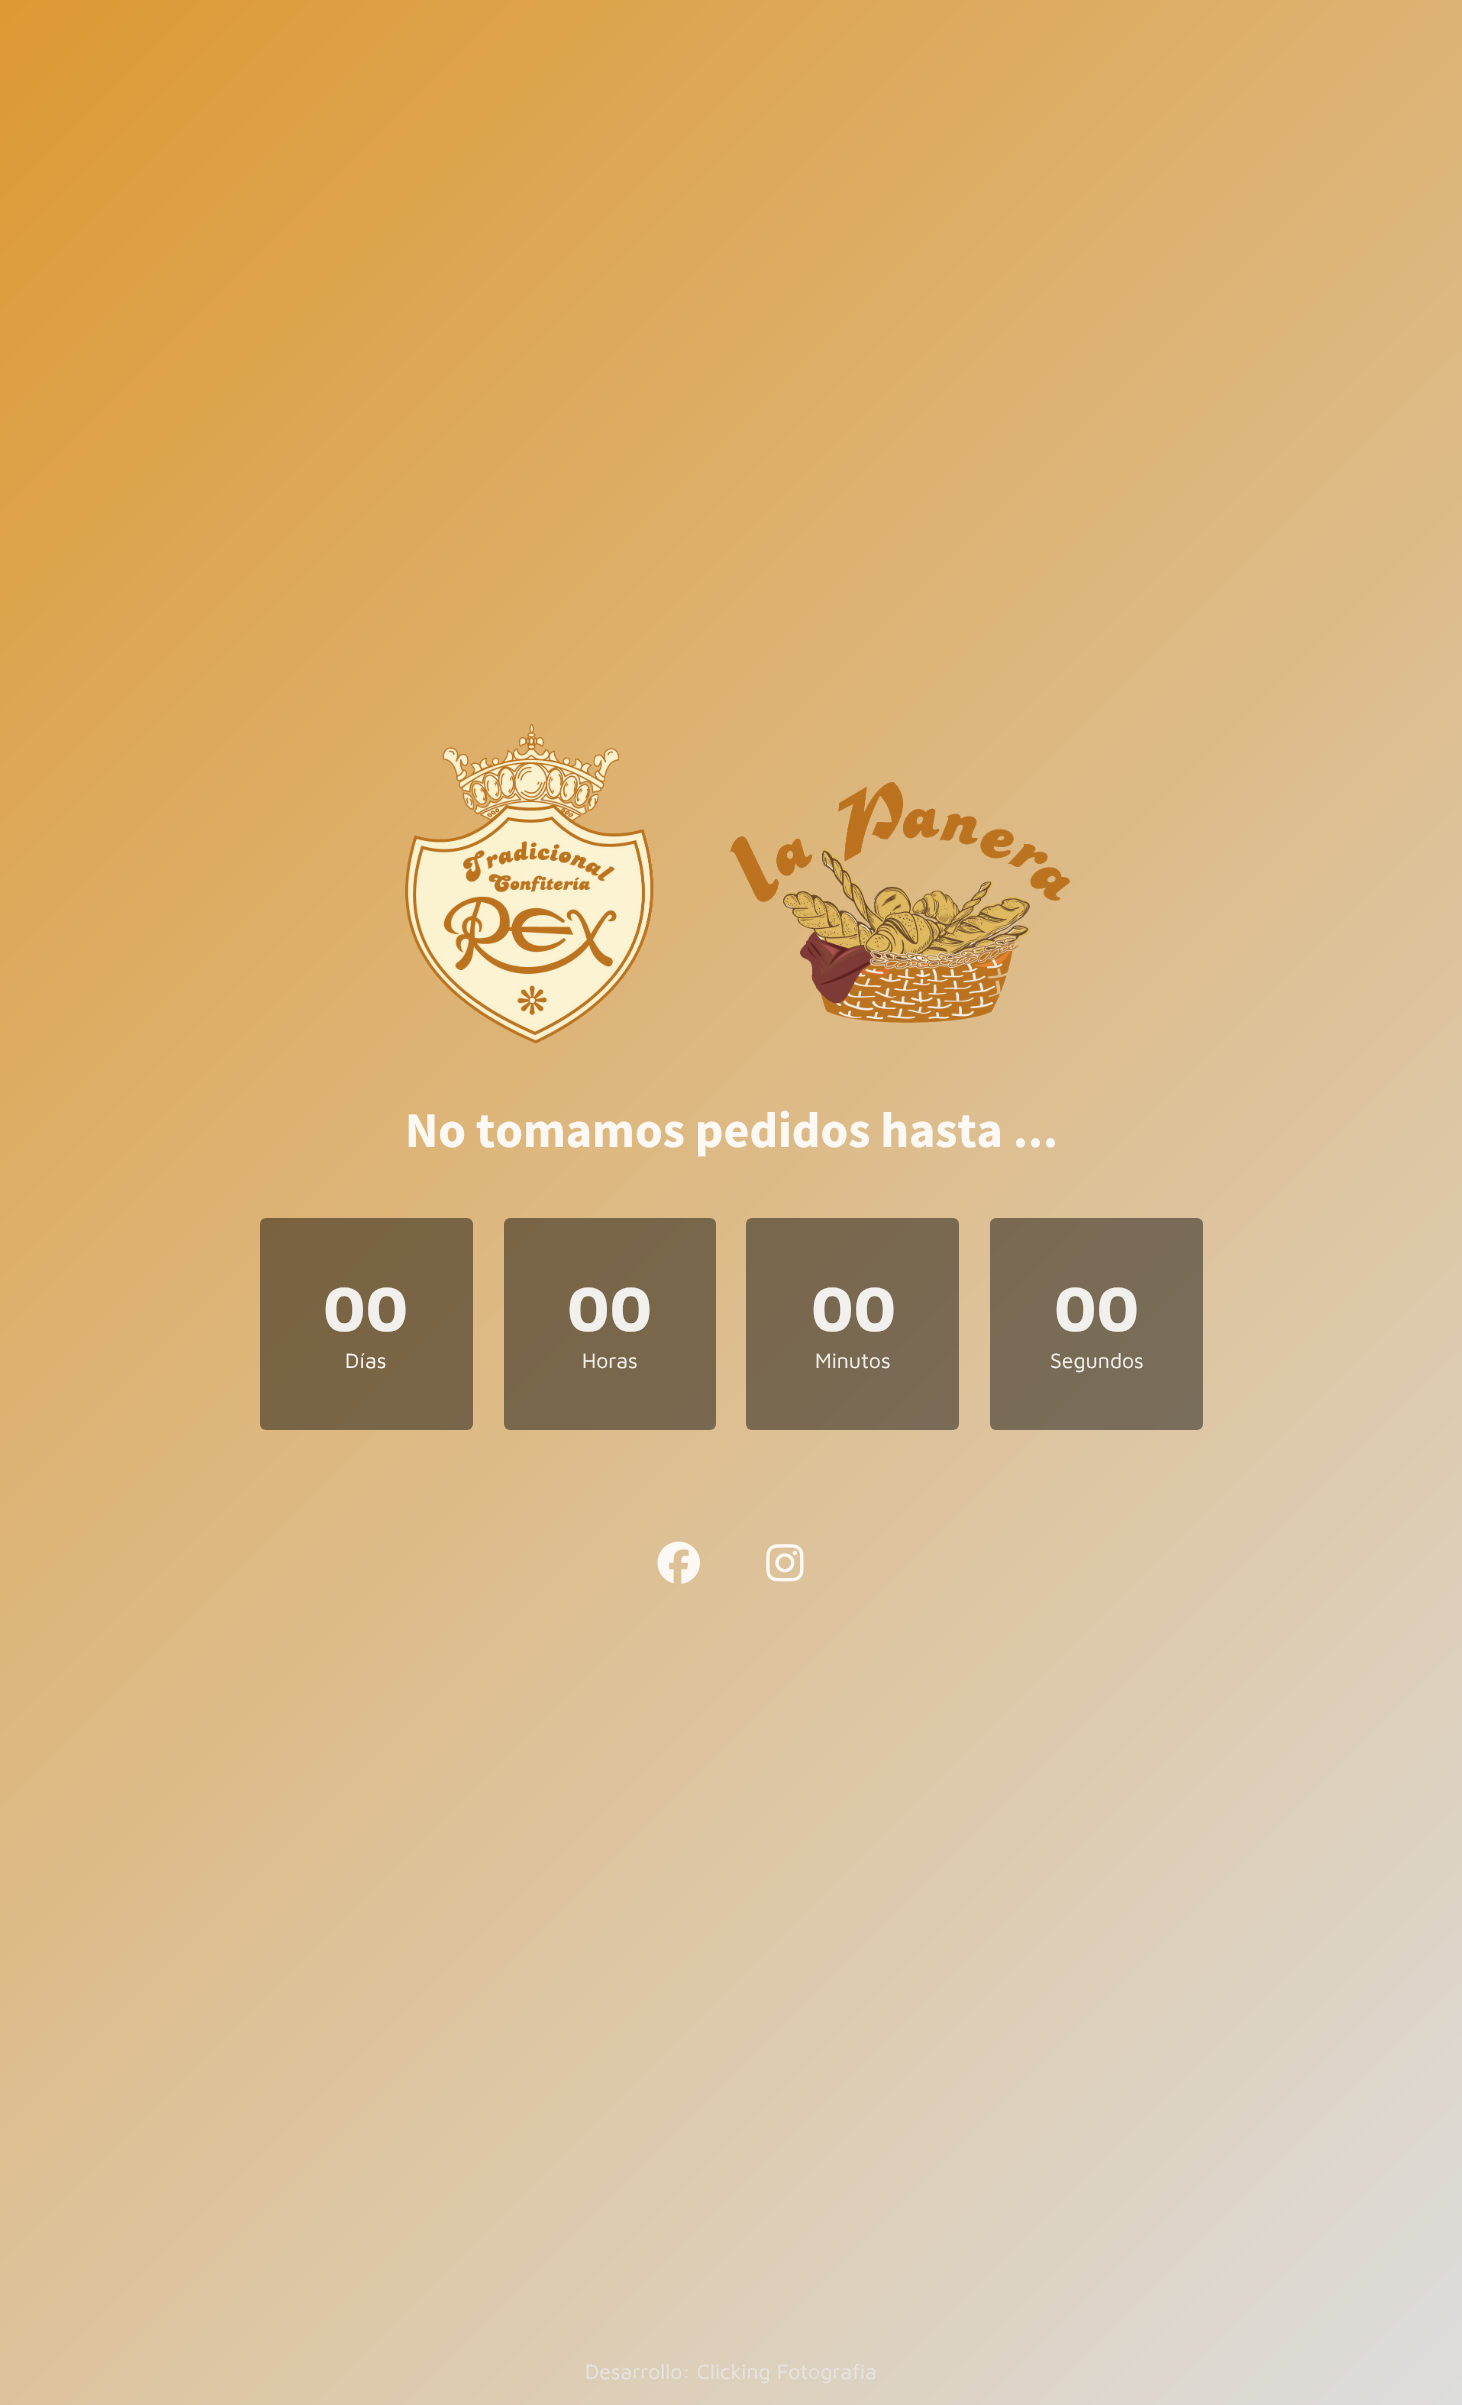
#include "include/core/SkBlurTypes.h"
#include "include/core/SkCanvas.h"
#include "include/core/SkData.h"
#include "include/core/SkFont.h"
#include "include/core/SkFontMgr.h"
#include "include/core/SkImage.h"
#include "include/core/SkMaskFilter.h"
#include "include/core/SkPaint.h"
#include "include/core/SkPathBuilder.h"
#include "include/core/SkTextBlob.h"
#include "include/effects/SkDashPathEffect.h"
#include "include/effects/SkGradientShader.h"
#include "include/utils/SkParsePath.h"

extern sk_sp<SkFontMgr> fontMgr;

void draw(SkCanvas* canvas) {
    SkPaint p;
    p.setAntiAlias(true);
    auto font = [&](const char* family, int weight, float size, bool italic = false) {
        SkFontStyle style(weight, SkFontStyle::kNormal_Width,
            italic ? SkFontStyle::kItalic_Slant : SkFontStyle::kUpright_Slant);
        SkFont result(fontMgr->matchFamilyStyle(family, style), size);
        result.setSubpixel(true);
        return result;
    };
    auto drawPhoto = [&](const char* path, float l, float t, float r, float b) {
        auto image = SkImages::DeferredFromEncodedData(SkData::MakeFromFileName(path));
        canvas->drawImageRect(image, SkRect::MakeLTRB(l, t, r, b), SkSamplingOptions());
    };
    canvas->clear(0xFFFFFFFF);
    {
        const SkColor colors[] = {0xFFDD9933, 0xFFDDDDDD};
        const float stops[] = {0, 1};
        const SkPoint ends[] = {{-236, 236}, {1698, 2169}};
        p.setShader(SkGradientShader::MakeLinear(ends, colors, stops, 2, SkTileMode::kClamp));
        p.setAlpha(255);
    }
    canvas->drawRect(SkRect::MakeLTRB(0, 0, 1462, 2405), p);
    drawPhoto("media/1.png", 405, 723, 1071, 1044);
    auto font1 = font("Source Sans Pro", 700, 50);
    p.setShader(nullptr);
    p.setColor(0xFFFCF8F3);
    canvas->drawString("No tomamos pedidos hasta ...", 405, 1147, font1, p);
    p.setColor(0x73000000);
    canvas->drawRoundRect(SkRect::MakeLTRB(260, 1218, 473, 1430), 6, 6, p);
    auto font2 = font("Maven Pro", 700, 64);
    p.setColor(0xFFF2F0EC);
    canvas->drawString("00", 323, 1331, font2, p);
    auto font3 = font("Maven Pro", 400, 21.25f);
    p.setColor(0xFFFCF8F3);
    canvas->drawString("Días", 345, 1368, font3, p);
    p.setColor(0x73000000);
    canvas->drawRoundRect(SkRect::MakeLTRB(504, 1218, 716, 1430), 6, 6, p);
    p.setColor(0xFFF2F0EC);
    canvas->drawString("00", 567, 1331, font2, p);
    canvas->drawString("Horas", 582, 1368, font3, p);
    p.setColor(0x73000000);
    canvas->drawRoundRect(SkRect::MakeLTRB(746, 1218, 959, 1430), 6, 6, p);
    p.setColor(0xFFF2F0EC);
    canvas->drawString("00", 811, 1331, font2, p);
    canvas->drawString("Minutos", 815, 1368, font3, p);
    p.setColor(0x73000000);
    canvas->drawRoundRect(SkRect::MakeLTRB(990, 1218, 1203, 1430), 6, 6, p);
    p.setColor(0xFFF2F0EC);
    canvas->drawString("00", 1054, 1331, font2, p);
    canvas->drawString("Segundos", 1050, 1368, font3, p);
    drawPhoto("media/2.png", 657, 1541, 700, 1584);
    drawPhoto("media/3.png", 766, 1544, 804, 1582);
    p.setColor(0xFFE5E4E2);
    canvas->drawString("Desarrollo: Clicking Fotografia", 585, 2379, font3, p);
}
